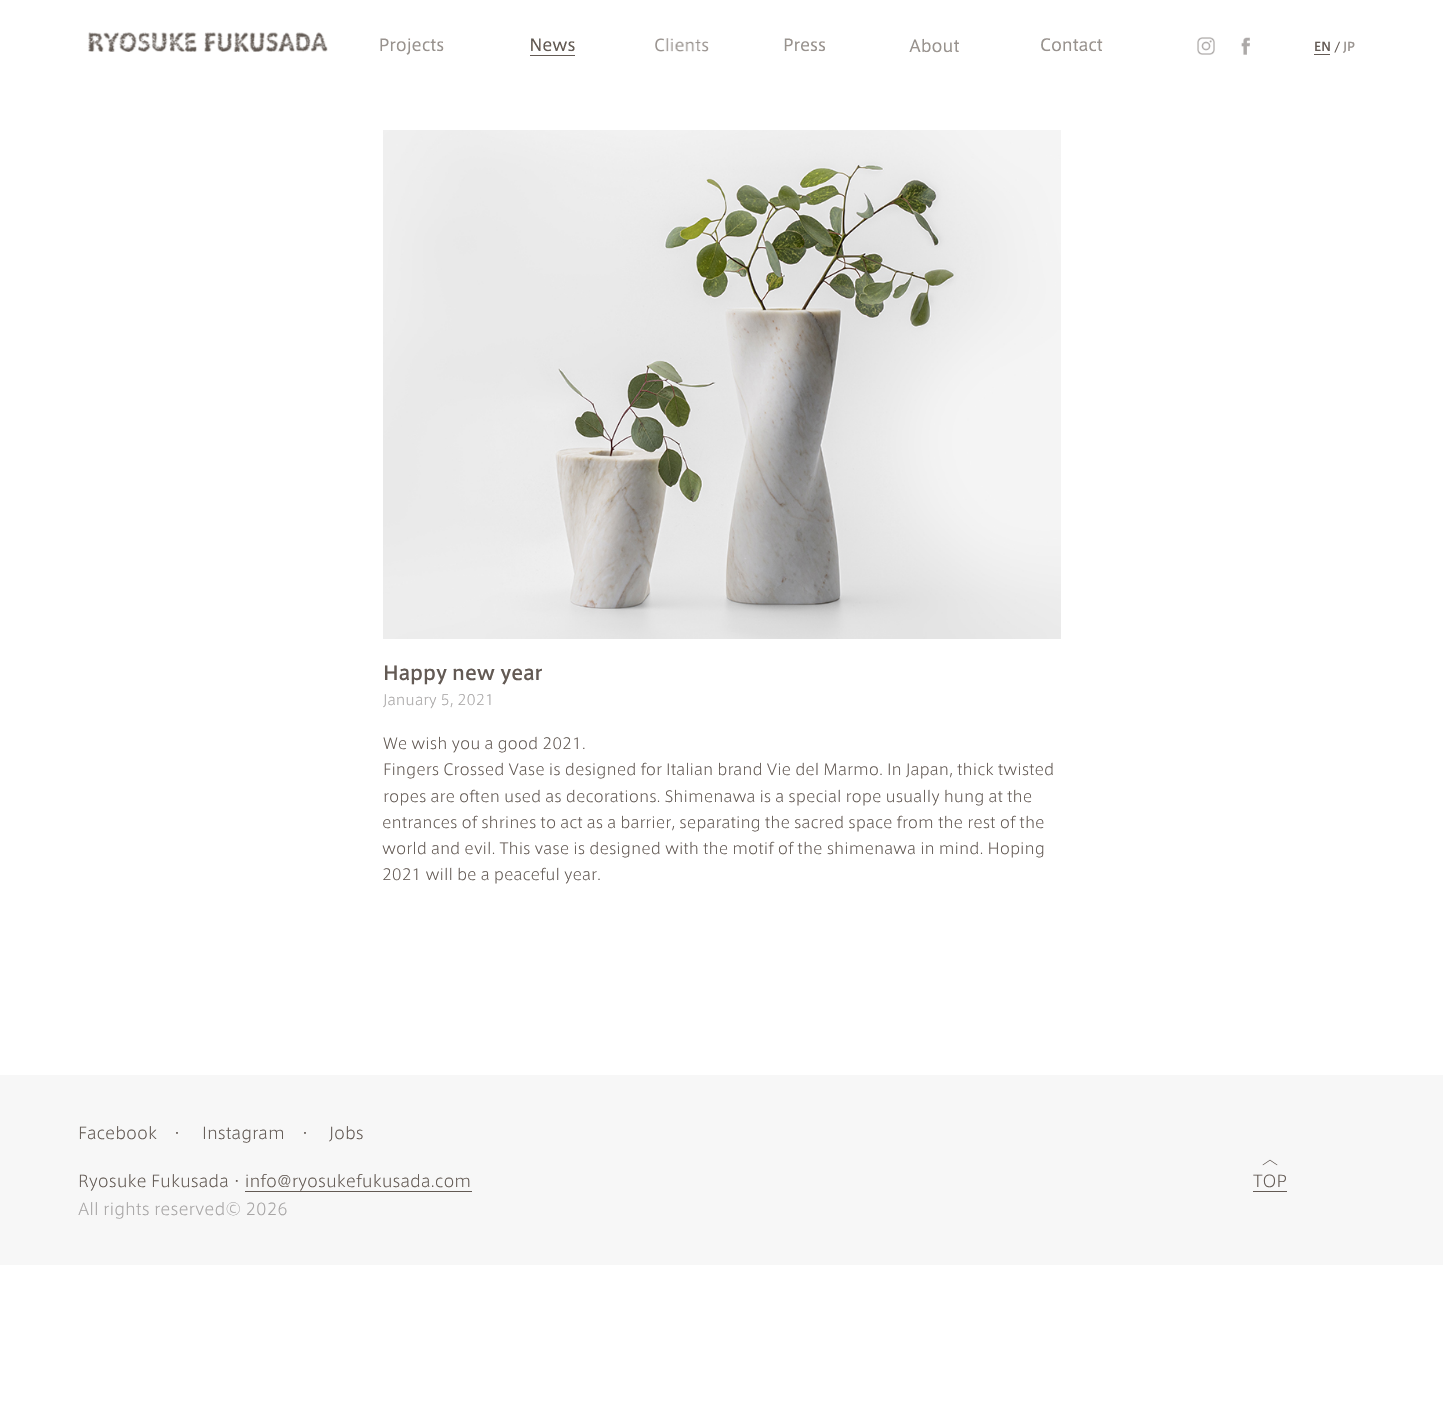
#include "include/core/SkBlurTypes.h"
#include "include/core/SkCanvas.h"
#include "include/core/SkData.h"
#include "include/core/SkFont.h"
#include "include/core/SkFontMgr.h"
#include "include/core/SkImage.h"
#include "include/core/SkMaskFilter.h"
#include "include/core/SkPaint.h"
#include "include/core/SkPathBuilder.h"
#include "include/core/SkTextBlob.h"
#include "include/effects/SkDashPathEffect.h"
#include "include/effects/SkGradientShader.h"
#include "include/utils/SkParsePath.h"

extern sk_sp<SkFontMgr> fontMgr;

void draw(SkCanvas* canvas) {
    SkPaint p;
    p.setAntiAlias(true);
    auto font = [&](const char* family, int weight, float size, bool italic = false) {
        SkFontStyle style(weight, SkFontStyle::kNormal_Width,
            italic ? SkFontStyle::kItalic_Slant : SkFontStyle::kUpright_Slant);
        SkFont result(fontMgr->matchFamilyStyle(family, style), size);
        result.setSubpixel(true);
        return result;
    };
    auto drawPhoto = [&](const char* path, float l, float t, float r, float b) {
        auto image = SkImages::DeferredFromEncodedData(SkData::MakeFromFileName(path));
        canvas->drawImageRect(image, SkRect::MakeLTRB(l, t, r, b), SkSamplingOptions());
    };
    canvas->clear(0xFFFFFFFF);
    drawPhoto("media/1.png", 88, 32, 328, 52);
    drawPhoto("media/2.png", 380, 38, 444, 55);
    p.setColor(0xFF635A54);
    canvas->drawRect(SkRect::MakeLTRB(530, 55, 575, 56), p);
    drawPhoto("media/3.png", 531, 38, 575, 52);
    drawPhoto("media/4.png", 655, 38, 709, 52);
    drawPhoto("media/5.png", 784, 38, 825, 52);
    drawPhoto("media/6.png", 909, 38, 959, 53);
    drawPhoto("media/7.png", 1041, 38, 1103, 52);
    drawPhoto("media/8.png", 1197, 37, 1215, 55);
    drawPhoto("media/9.png", 1241, 37, 1250, 55);
    auto font1 = font("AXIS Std", 500, 12);
    canvas->drawString("EN /", 1314, 51, font1, p);
    canvas->drawRect(SkRect::MakeLTRB(1314, 54, 1330, 55), p);
    p.setColor(0xFF9A9490);
    canvas->drawString("JP", 1343, 51, font1, p);
    drawPhoto("media/10.png", 383, 130, 1061, 639);
    auto font2 = font("AXIS Std", 500, 19);
    p.setColor(0xFF635A54);
    canvas->drawString("Happy new year", 383, 680, font2, p);
    auto font3 = font("AXIS Std", 300, 14);
    p.setColor(0xFFA7A5A5);
    canvas->drawString("January 5, 2021", 383, 705, font3, p);
    auto font4 = font("AXIS Std", 300, 15);
    p.setColor(0xFF635A54);
    {
        const struct { const char* s; float x, y; } items[] = {
            {"We wish you a good 2021.", 383, 749},
            {"Fingers Crossed Vase is designed for Italian brand Vie del Marmo. In Japan, thick twisted", 383, 775},
            {"ropes are often used as decorations. Shimenawa is a special rope usually hung at the", 383, 802},
            {"entrances of shrines to act as a barrier, separating the sacred space from the rest of the", 382, 828},
            {"world and evil. This vase is designed with the motif of the shimenawa in mind. Hoping", 382, 854},
            {"2021 will be a peaceful year.", 382, 880},
        };
        for (auto [s, x, y] : items) {
            canvas->drawString(s, x, y, font4, p);
        }
    }
    p.setColor(0xFFF7F7F7);
    canvas->drawRect(SkRect::MakeLTRB(0, 1075, 1443, 1265), p);
    auto font5 = font("AXIS Std", 300, 16);
    p.setColor(0xFF635A54);
    {
        const struct { const char* s; float x, y; } items[] = {
            {"Facebook", 78, 1139},
            {"・", 169, 1139},
            {"Instagram", 202, 1139},
            {"・", 297, 1139},
            {"Jobs", 329, 1139},
            {"Ryosuke Fukusada・info@ryosukefukusada.com", 78, 1187},
        };
        for (auto [s, x, y] : items) {
            canvas->drawString(s, x, y, font5, p);
        }
    }
    canvas->drawRect(SkRect::MakeLTRB(245, 1191, 472, 1192), p);
    p.setColor(0xFFA7A5A5);
    canvas->drawString("All rights reserved© 2026", 78, 1215, font5, p);
    p.setColor(0xFF635A54);
    canvas->drawString("︿", 1262, 1164, font5, p);
    canvas->drawString("TOP", 1253, 1187, font5, p);
    canvas->drawRect(SkRect::MakeLTRB(1253, 1191, 1287, 1192), p);
}
